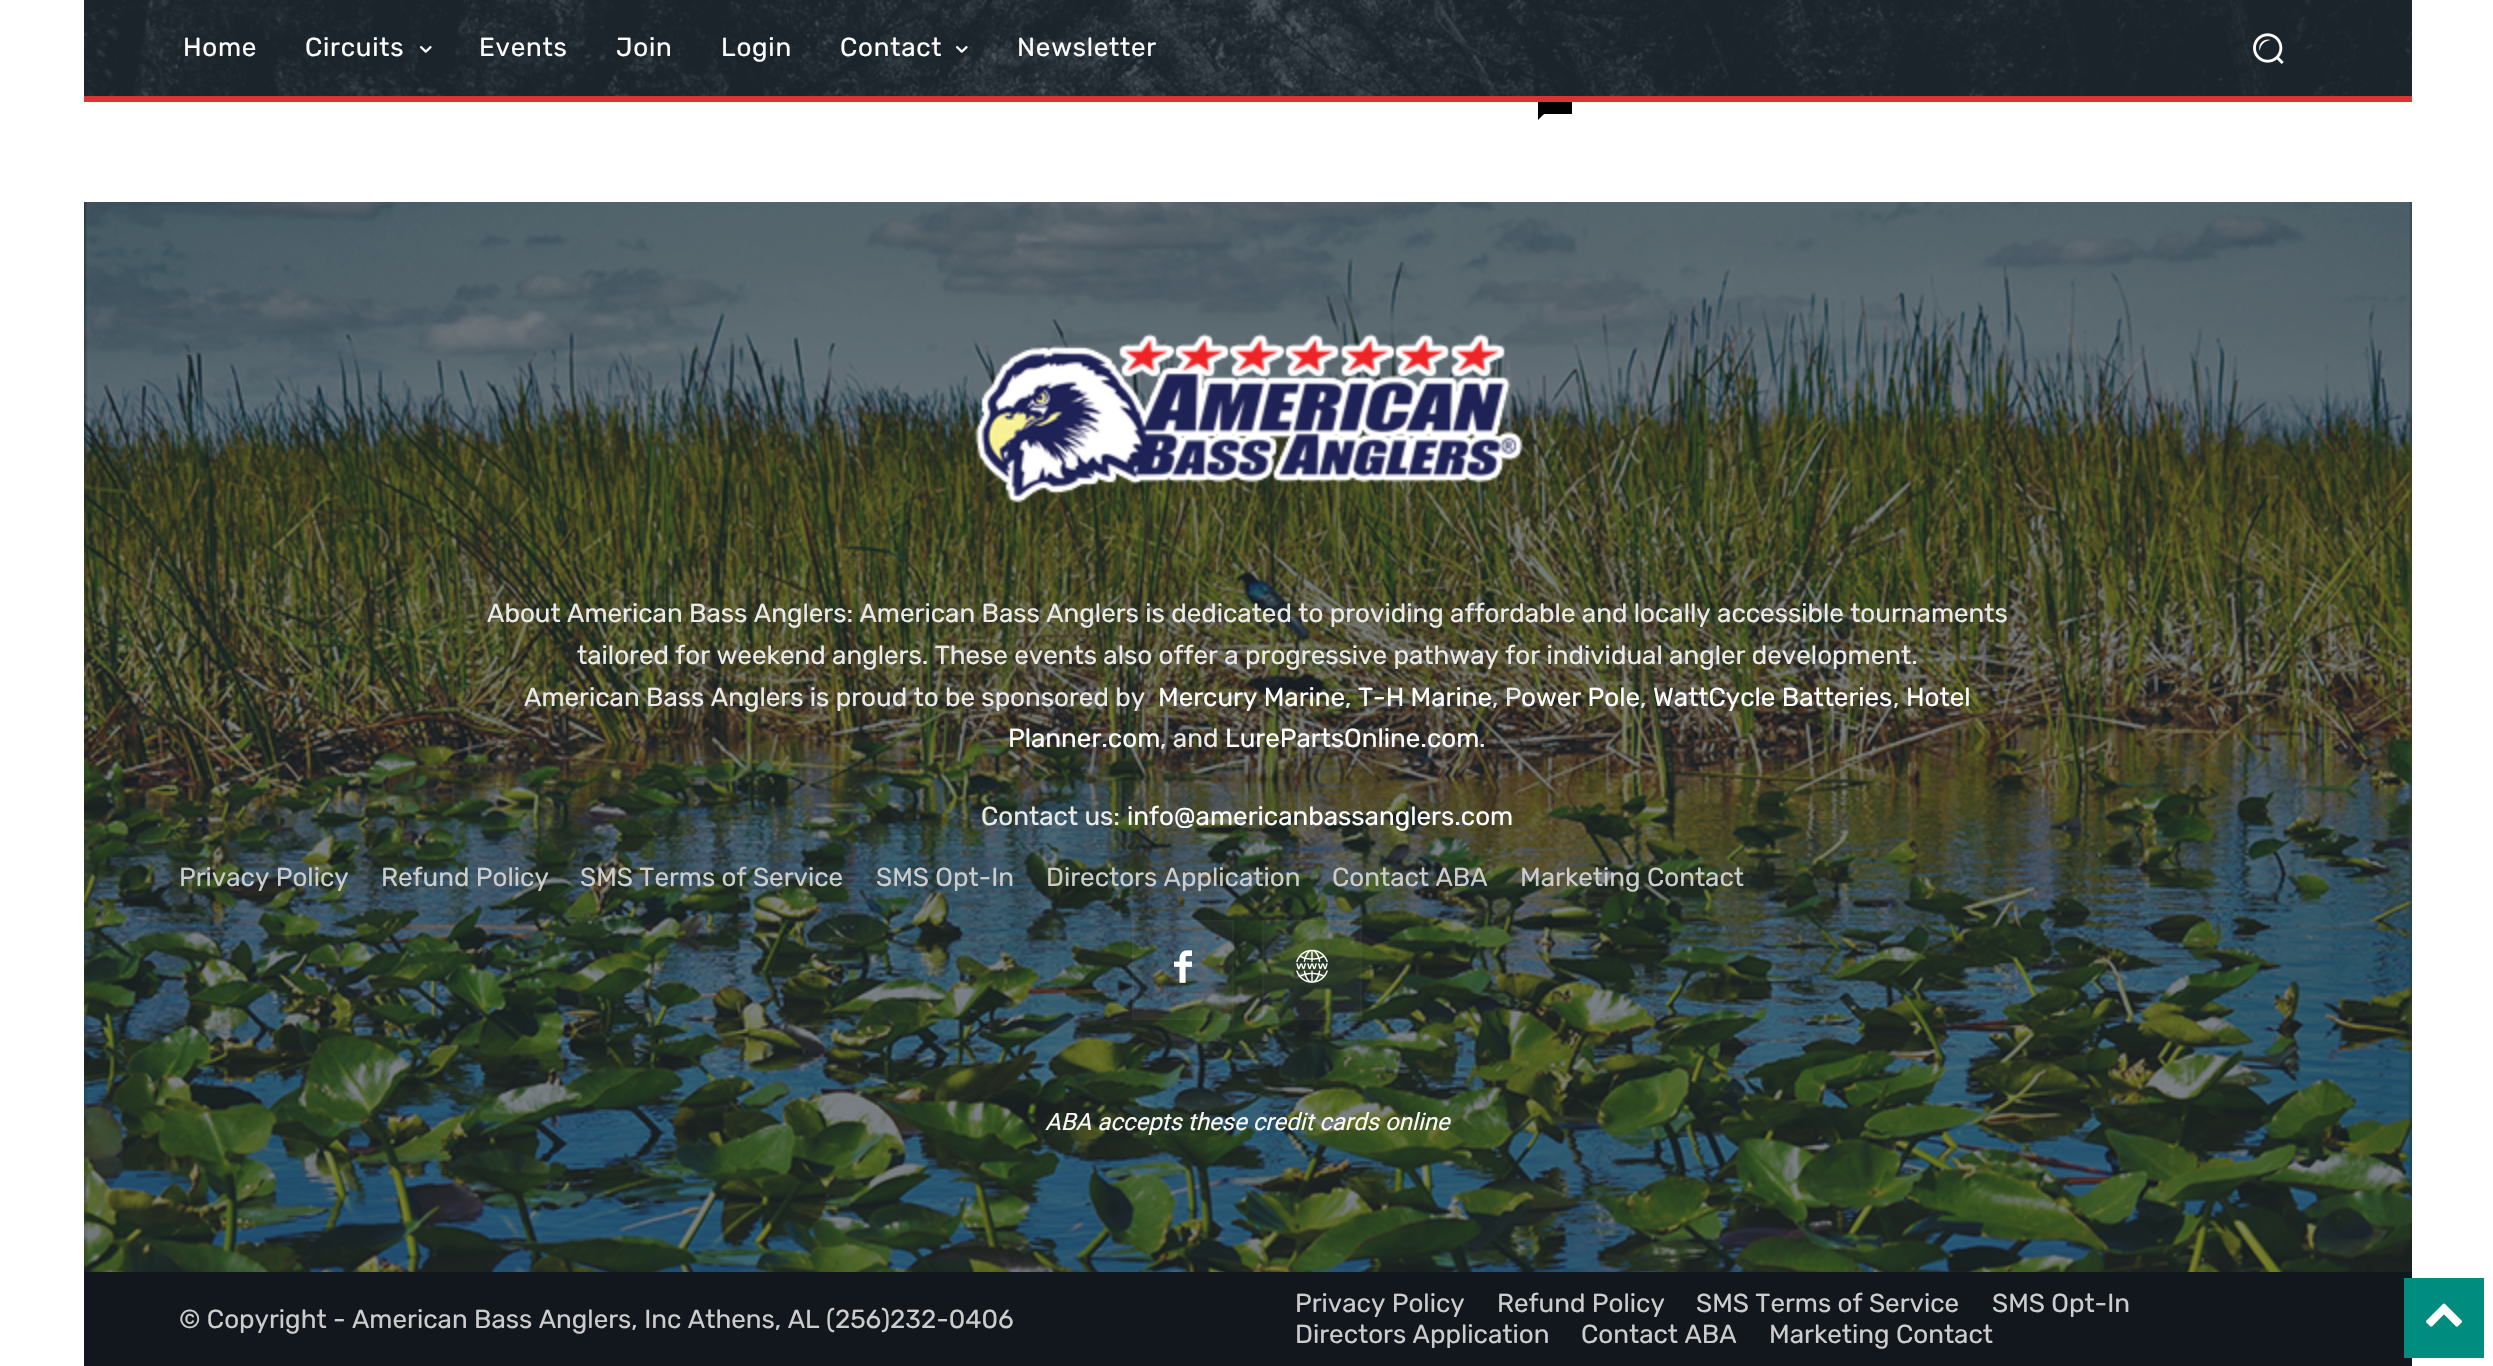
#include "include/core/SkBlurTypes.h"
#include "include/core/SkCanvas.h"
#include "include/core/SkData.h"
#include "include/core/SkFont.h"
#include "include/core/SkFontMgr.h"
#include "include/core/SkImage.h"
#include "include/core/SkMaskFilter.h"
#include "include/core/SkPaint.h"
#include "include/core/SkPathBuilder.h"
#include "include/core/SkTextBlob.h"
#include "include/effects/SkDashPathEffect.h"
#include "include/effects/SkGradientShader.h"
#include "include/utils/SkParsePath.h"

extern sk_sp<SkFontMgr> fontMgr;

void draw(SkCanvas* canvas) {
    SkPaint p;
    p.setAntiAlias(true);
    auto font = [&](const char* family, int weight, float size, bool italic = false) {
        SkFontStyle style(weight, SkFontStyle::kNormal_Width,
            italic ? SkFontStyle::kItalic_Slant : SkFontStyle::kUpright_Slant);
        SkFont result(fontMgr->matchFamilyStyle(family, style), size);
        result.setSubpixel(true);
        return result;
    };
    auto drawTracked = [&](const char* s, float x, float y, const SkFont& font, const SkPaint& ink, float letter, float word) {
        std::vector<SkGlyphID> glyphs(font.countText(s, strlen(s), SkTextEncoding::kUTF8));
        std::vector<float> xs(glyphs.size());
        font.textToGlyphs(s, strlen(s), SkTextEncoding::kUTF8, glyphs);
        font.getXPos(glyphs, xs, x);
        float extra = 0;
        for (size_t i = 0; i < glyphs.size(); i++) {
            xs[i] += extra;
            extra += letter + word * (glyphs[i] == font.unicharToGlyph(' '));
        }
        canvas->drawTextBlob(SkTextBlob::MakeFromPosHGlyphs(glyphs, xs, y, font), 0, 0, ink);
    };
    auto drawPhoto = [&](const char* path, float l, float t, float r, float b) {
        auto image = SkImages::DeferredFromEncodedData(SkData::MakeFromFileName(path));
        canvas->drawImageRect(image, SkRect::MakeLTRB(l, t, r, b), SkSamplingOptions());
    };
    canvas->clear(0xFFFFFFFF);
    p.setColor(0xFF232D35);
    canvas->drawRect(SkRect::MakeLTRB(84, 0, 2412, 96), p);
    drawPhoto("media/1.png", 84, 0, 2412, 96);
    auto font1 = font("Rubik", 400, 26);
    p.setColor(0xFFFFFFFF);
    drawTracked("Home", 183, 56, font1, p, 0.75f, 0);
    drawTracked("Circuits", 305, 56, font1, p, 0.75f, 0);
    drawPhoto("media/2.png", 420, 46, 432, 53);
    {
        const struct { const char* s; float x, y; } items[] = {
            {"Events", 479, 56},
            {"Join", 616, 56},
            {"Login", 721, 56},
            {"Contact", 840, 56},
        };
        for (auto [s, x, y] : items) {
            drawTracked(s, x, y, font1, p, 0.75f, 0);
        }
    }
    drawPhoto("media/3.png", 956, 46, 968, 53);
    drawTracked("Newsletter", 1017, 56, font1, p, 0.75f, 0);
    drawPhoto("media/4.png", 2253, 33, 2284, 64);
    p.setColor(0xFFDD3333);
    canvas->drawRect(SkRect::MakeLTRB(84, 96, 2412, 102), p);
    p.setColor(0xFF000000);
    canvas->drawRect(SkRect::MakeLTRB(1538, 102, 1572, 114), p);
    canvas->drawPath(SkPathBuilder().moveTo(1538, 114).lineTo(1544, 114).lineTo(1538, 120).close().detach(), p);
    p.setColor(0xFF232D35);
    canvas->drawRect(SkRect::MakeLTRB(84, 202, 2412, 1272), p);
    drawPhoto("media/5.png", 84, 202, 2412, 1272);
    drawPhoto("media/6.png", 975, 333, 1523, 503);
    p.setColor(0xFFEAEAEA);
    {
        const struct { const char* s; float x, y; } items[] = {
            {"About American Bass Anglers: American Bass Anglers is dedicated to providing affordable and locally accessible tournaments", 487, 622},
            {"tailored for weekend anglers. These events also offer a progressive pathway for individual angler development.", 577, 664},
            {"American Bass Anglers is proud to be sponsored by", 524, 706},
        };
        for (auto [s, x, y] : items) {
            canvas->drawString(s, x, y, font1, p);
        }
    }
    p.setColor(0xFFFFFFFF);
    canvas->drawString("Mercury Marine", 1158, 706, font1, p);
    p.setColor(0xFFEAEAEA);
    canvas->drawString(",", 1345, 706, font1, p);
    p.setColor(0xFFFFFFFF);
    canvas->drawString("T-H Marine", 1358, 706, font1, p);
    p.setColor(0xFFEAEAEA);
    canvas->drawString(", P", 1492, 706, font1, p);
    p.setColor(0xFFFFFFFF);
    canvas->drawString("ower Pole", 1521, 706, font1, p);
    p.setColor(0xFFEAEAEA);
    canvas->drawString(",", 1640, 706, font1, p);
    p.setColor(0xFFFFFFFF);
    canvas->drawString("WattCycle Batteries", 1653, 706, font1, p);
    p.setColor(0xFFEAEAEA);
    canvas->drawString(",", 1893, 706, font1, p);
    p.setColor(0xFFFFFFFF);
    canvas->drawString("Hotel", 1906, 706, font1, p);
    canvas->drawString("Planner.com", 1008, 747, font1, p);
    p.setColor(0xFFEAEAEA);
    canvas->drawString(", and", 1160, 747, font1, p);
    p.setColor(0xFFFFFFFF);
    canvas->drawString("LurePartsOnline.com", 1225, 747, font1, p);
    p.setColor(0xFFEAEAEA);
    canvas->drawString(".", 1479, 747, font1, p);
    canvas->drawString("Contact us:", 981, 825, font1, p);
    p.setColor(0xFFFFFFFF);
    canvas->drawString("info@americanbassanglers.com", 1127, 825, font1, p);
    p.setColor(0xFFCCCCCC);
    {
        const struct { const char* s; float x, y; } items[] = {
            {"Privacy Policy", 179, 886},
            {"Refund Policy", 381, 886},
            {"SMS Terms of Service", 580, 886},
            {"SMS Opt-In", 876, 886},
            {"Directors Application", 1046, 886},
            {"Contact ABA", 1332, 886},
            {"Marketing Contact", 1520, 886},
        };
        for (auto [s, x, y] : items) {
            canvas->drawString(s, x, y, font1, p);
        }
    }
    p.setColor(0x08FFFFFF);
    canvas->drawRect(SkRect::MakeLTRB(1132, 920, 1234, 1020), p);
    p.setStyle(SkPaint::kStroke_Style);
    p.setStrokeWidth(2);
    p.setColor(0x08CB9558);
    canvas->drawRect(SkRect::MakeLTRB(1133, 921, 1233, 1019), p);
    drawPhoto("media/7.png", 1174, 950, 1192, 983);
    p.setStyle(SkPaint::kFill_Style);
    p.setColor(0x08FFFFFF);
    canvas->drawRect(SkRect::MakeLTRB(1262, 920, 1362, 1020), p);
    p.setStyle(SkPaint::kStroke_Style);
    p.setColor(0x08CB9558);
    canvas->drawRect(SkRect::MakeLTRB(1263, 921, 1361, 1019), p);
    drawPhoto("media/8.png", 1296, 949, 1328, 983);
    auto font2 = font("Roboto", 400, 24, true);
    p.setStyle(SkPaint::kFill_Style);
    p.setColor(0xFFF9F9F9);
    canvas->drawString("ABA accepts these credit cards online", 1045, 1130, font2, p);
    p.setColor(0xFF11171C);
    canvas->drawRect(SkRect::MakeLTRB(84, 1272, 2412, 1366), p);
    p.setColor(0xFFCCCCCC);
    {
        const struct { const char* s; float x, y; } items[] = {
            {"© Copyright - American Bass Anglers, Inc Athens, AL (256)232-0406", 179, 1328},
            {"Privacy Policy", 1295, 1312},
            {"Refund Policy", 1497, 1312},
            {"SMS Terms of Service", 1696, 1312},
            {"SMS Opt-In", 1992, 1312},
            {"Directors Application", 1295, 1343},
            {"Contact ABA", 1581, 1343},
            {"Marketing Contact", 1769, 1343},
        };
        for (auto [s, x, y] : items) {
            canvas->drawString(s, x, y, font1, p);
        }
    }
    p.setColor(0xFF008D7F);
    canvas->drawRect(SkRect::MakeLTRB(2404, 1278, 2484, 1358), p);
    drawPhoto("media/9.png", 2426, 1303, 2462, 1327);
}
